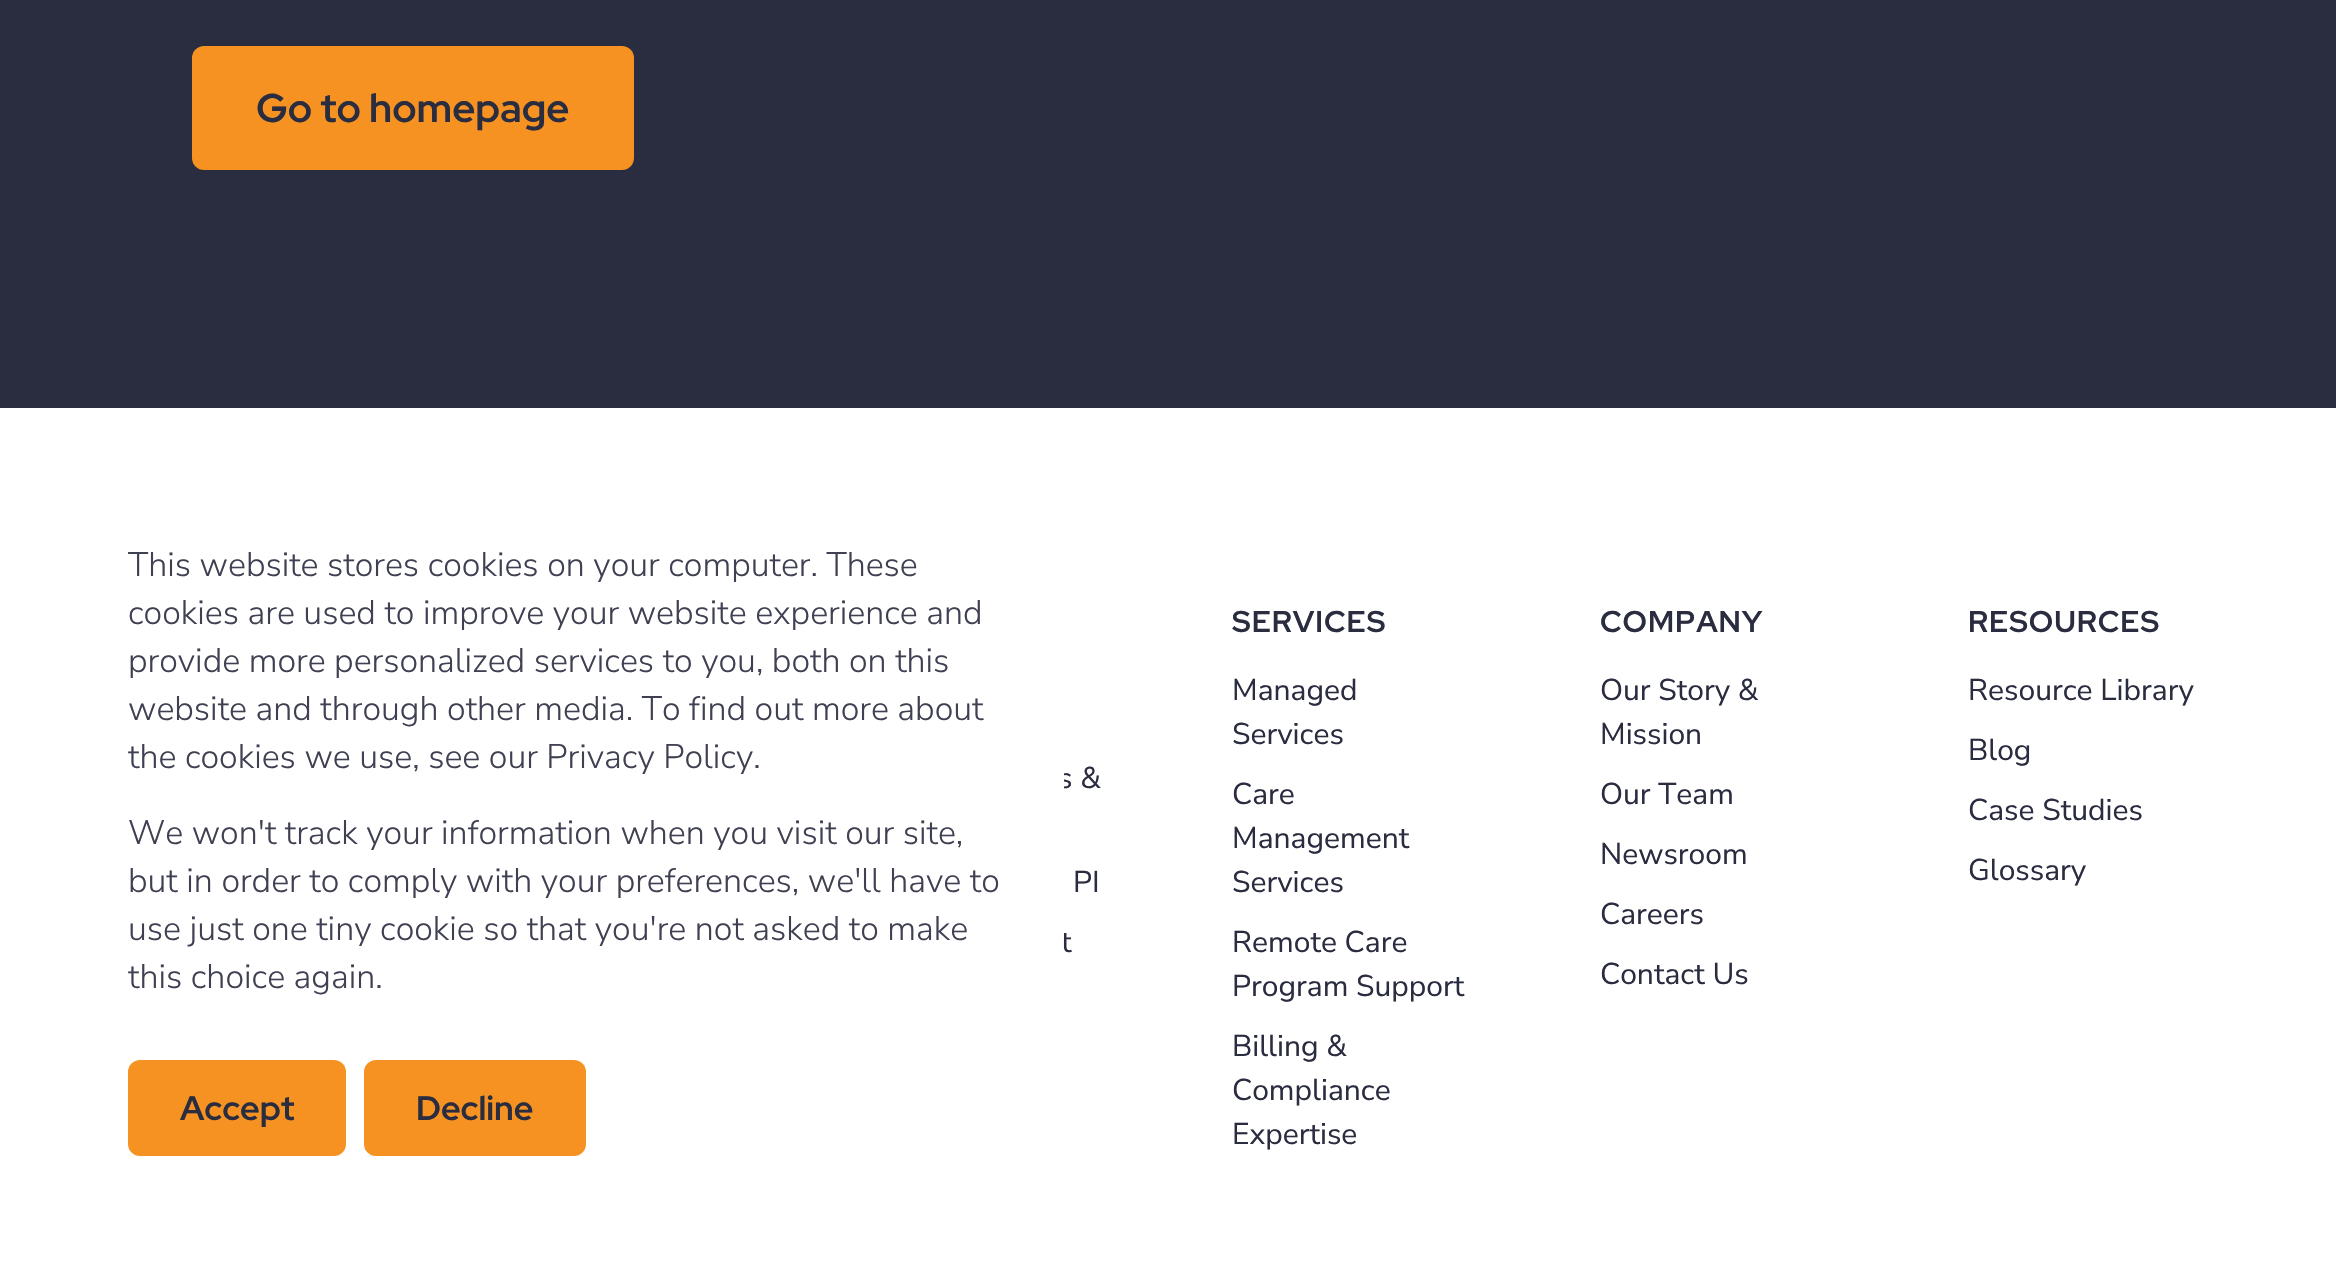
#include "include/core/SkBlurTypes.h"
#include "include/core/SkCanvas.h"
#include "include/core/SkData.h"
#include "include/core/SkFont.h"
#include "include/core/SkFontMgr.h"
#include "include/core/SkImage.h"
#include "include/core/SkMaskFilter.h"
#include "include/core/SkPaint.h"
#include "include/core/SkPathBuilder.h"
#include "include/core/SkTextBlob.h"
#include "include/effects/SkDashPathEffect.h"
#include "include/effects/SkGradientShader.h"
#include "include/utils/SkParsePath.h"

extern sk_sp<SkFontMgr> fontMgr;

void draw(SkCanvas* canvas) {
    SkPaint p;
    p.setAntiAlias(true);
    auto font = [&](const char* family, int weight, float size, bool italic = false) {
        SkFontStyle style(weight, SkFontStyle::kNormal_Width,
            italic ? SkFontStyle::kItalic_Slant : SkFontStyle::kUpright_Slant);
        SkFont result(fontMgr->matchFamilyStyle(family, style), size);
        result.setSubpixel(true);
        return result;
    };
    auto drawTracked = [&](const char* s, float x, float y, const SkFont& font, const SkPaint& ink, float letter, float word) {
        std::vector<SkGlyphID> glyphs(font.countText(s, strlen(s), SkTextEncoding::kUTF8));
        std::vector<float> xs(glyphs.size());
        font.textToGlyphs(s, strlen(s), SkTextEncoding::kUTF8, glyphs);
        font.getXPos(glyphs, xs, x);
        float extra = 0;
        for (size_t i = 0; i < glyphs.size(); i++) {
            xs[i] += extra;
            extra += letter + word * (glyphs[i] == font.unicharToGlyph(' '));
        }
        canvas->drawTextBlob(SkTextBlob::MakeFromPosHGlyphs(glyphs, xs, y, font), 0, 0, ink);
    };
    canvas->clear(0xFFFFFFFF);
    p.setColor(0xFF2A2C3F);
    canvas->drawRect(SkRect::MakeLTRB(0, 0, 2336, 408), p);
    p.setColor(0xFFF59221);
    canvas->drawRoundRect(SkRect::MakeLTRB(192, 46, 634, 170), 12, 12, p);
    auto font1 = font("Red Hat Display", 700, 40);
    p.setColor(0xFF2A2C3F);
    canvas->drawString("Go to homepage", 256, 122, font1, p);
    auto font2 = font("Nunito Sans", 400, 30);
    canvas->drawString("s &", 1058, 788, font2, p);
    canvas->drawString("t", 1061, 952, font2, p);
    p.setColor(0xFFFFFFFF);
    canvas->drawRect(SkRect::MakeLTRB(1059, 773, 1064, 940), p);
    auto font3 = font("Nunito Sans", 300, 34);
    p.setColor(0xFF3F4152);
    {
        const struct { const char* s; float x, y; } items[] = {
            {"This website stores cookies on your computer. These", 128, 576},
            {"cookies are used to improve your website experience and", 128, 624},
            {"provide more personalized services to you, both on this", 128, 672},
            {"website and through other media. To find out more about", 128, 720},
            {"the cookies we use, see our Privacy Policy.", 128, 768},
            {"We won't track your information when you visit our site,", 128, 844},
            {"but in order to comply with your preferences, we'll have to", 128, 892},
            {"use just one tiny cookie so that you're not asked to make", 128, 940},
            {"this choice again.", 128, 988},
        };
        for (auto [s, x, y] : items) {
            canvas->drawString(s, x, y, font3, p);
        }
    }
    p.setColor(0xFFF59221);
    canvas->drawRoundRect(SkRect::MakeLTRB(128, 1060, 346, 1156), 12, 12, p);
    auto font4 = font("Red Hat Display", 700, 34);
    p.setColor(0xFF2A2C3F);
    canvas->drawString("Accept", 180, 1120, font4, p);
    p.setColor(0xFFF59221);
    canvas->drawRoundRect(SkRect::MakeLTRB(364, 1060, 586, 1156), 12, 12, p);
    p.setColor(0xFF2A2C3F);
    canvas->drawString("Decline", 416, 1120, font4, p);
    canvas->drawString("PI", 1073, 892, font2, p);
    auto font5 = font("Red Hat Display", 700, 30);
    drawTracked("SERVICES", 1232, 632, font5, p, 1, 0);
    {
        const struct { const char* s; float x, y; } items[] = {
            {"Managed", 1232, 700},
            {"Services", 1232, 744},
            {"Care", 1232, 804},
            {"Management", 1232, 848},
            {"Services", 1232, 892},
            {"Remote Care", 1232, 952},
            {"Program Support", 1232, 996},
            {"Billing &", 1232, 1056},
            {"Compliance", 1232, 1100},
            {"Expertise", 1232, 1144},
        };
        for (auto [s, x, y] : items) {
            canvas->drawString(s, x, y, font2, p);
        }
    }
    drawTracked("COMPANY", 1600, 632, font5, p, 1, 0);
    {
        const struct { const char* s; float x, y; } items[] = {
            {"Our Story &", 1600, 700},
            {"Mission", 1600, 744},
            {"Our Team", 1600, 804},
            {"Newsroom", 1600, 864},
            {"Careers", 1600, 924},
            {"Contact Us", 1600, 984},
        };
        for (auto [s, x, y] : items) {
            canvas->drawString(s, x, y, font2, p);
        }
    }
    drawTracked("RESOURCES", 1968, 632, font5, p, 1, 0);
    {
        const struct { const char* s; float x, y; } items[] = {
            {"Resource Library", 1968, 700},
            {"Blog", 1968, 760},
            {"Case Studies", 1968, 820},
            {"Glossary", 1968, 880},
        };
        for (auto [s, x, y] : items) {
            canvas->drawString(s, x, y, font2, p);
        }
    }
}
